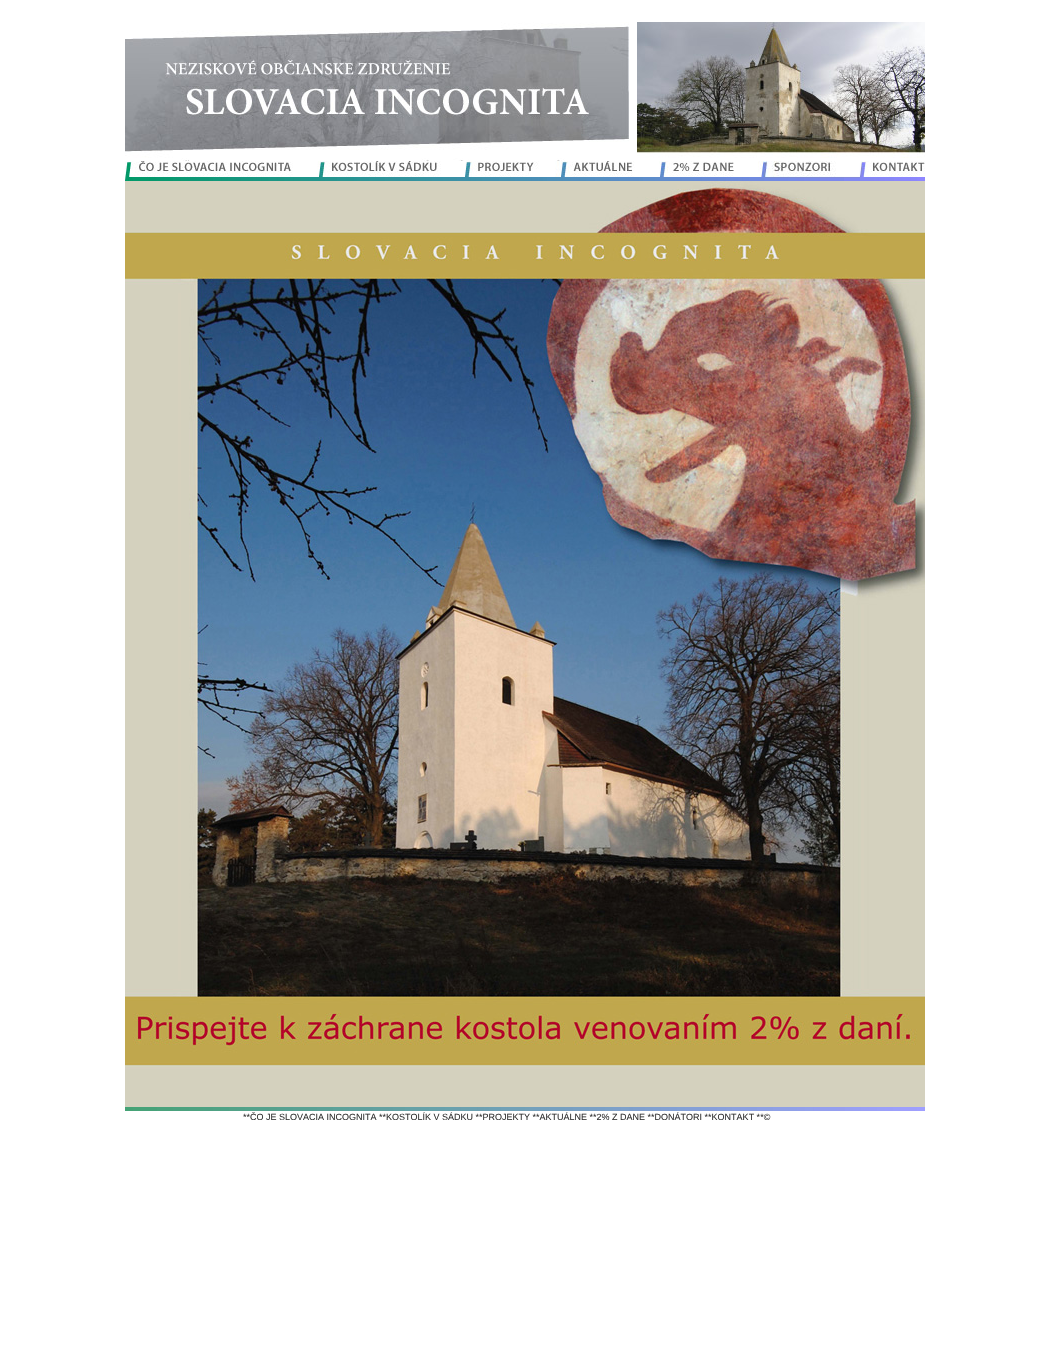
#include "include/core/SkBlurTypes.h"
#include "include/core/SkCanvas.h"
#include "include/core/SkData.h"
#include "include/core/SkFont.h"
#include "include/core/SkFontMgr.h"
#include "include/core/SkImage.h"
#include "include/core/SkMaskFilter.h"
#include "include/core/SkPaint.h"
#include "include/core/SkPathBuilder.h"
#include "include/core/SkTextBlob.h"
#include "include/effects/SkDashPathEffect.h"
#include "include/effects/SkGradientShader.h"
#include "include/utils/SkParsePath.h"

extern sk_sp<SkFontMgr> fontMgr;

void draw(SkCanvas* canvas) {
    SkPaint p;
    p.setAntiAlias(true);
    auto font = [&](const char* family, int weight, float size, bool italic = false) {
        SkFontStyle style(weight, SkFontStyle::kNormal_Width,
            italic ? SkFontStyle::kItalic_Slant : SkFontStyle::kUpright_Slant);
        SkFont result(fontMgr->matchFamilyStyle(family, style), size);
        result.setSubpixel(true);
        return result;
    };
    auto drawPhoto = [&](const char* path, float l, float t, float r, float b) {
        auto image = SkImages::DeferredFromEncodedData(SkData::MakeFromFileName(path));
        canvas->drawImageRect(image, SkRect::MakeLTRB(l, t, r, b), SkSamplingOptions());
    };
    canvas->clear(0xFFFFFFFF);
    drawPhoto("media/1.png", 125, 22, 925, 161);
    drawPhoto("media/2.png", 125, 161, 321, 181);
    drawPhoto("media/3.png", 321, 161, 467, 181);
    drawPhoto("media/4.png", 467, 161, 563, 181);
    drawPhoto("media/5.png", 563, 161, 662, 181);
    drawPhoto("media/6.png", 662, 161, 764, 181);
    drawPhoto("media/7.png", 764, 161, 862, 181);
    drawPhoto("media/8.png", 862, 161, 925, 181);
    drawPhoto("media/9.png", 125, 181, 925, 1107);
    drawPhoto("media/10.png", 125, 1107, 925, 1111);
    auto font1 = font("Liberation Sans", 400, 9);
    p.setColor(0xFF333333);
    canvas->drawString("**ČO JE SLOVACIA INCOGNITA **KOSTOLÍK V SÁDKU **PROJEKTY **AKTUÁLNE **2% Z DANE **DONÁTORI **KONTAKT **©", 243, 1120, font1, p);
}
